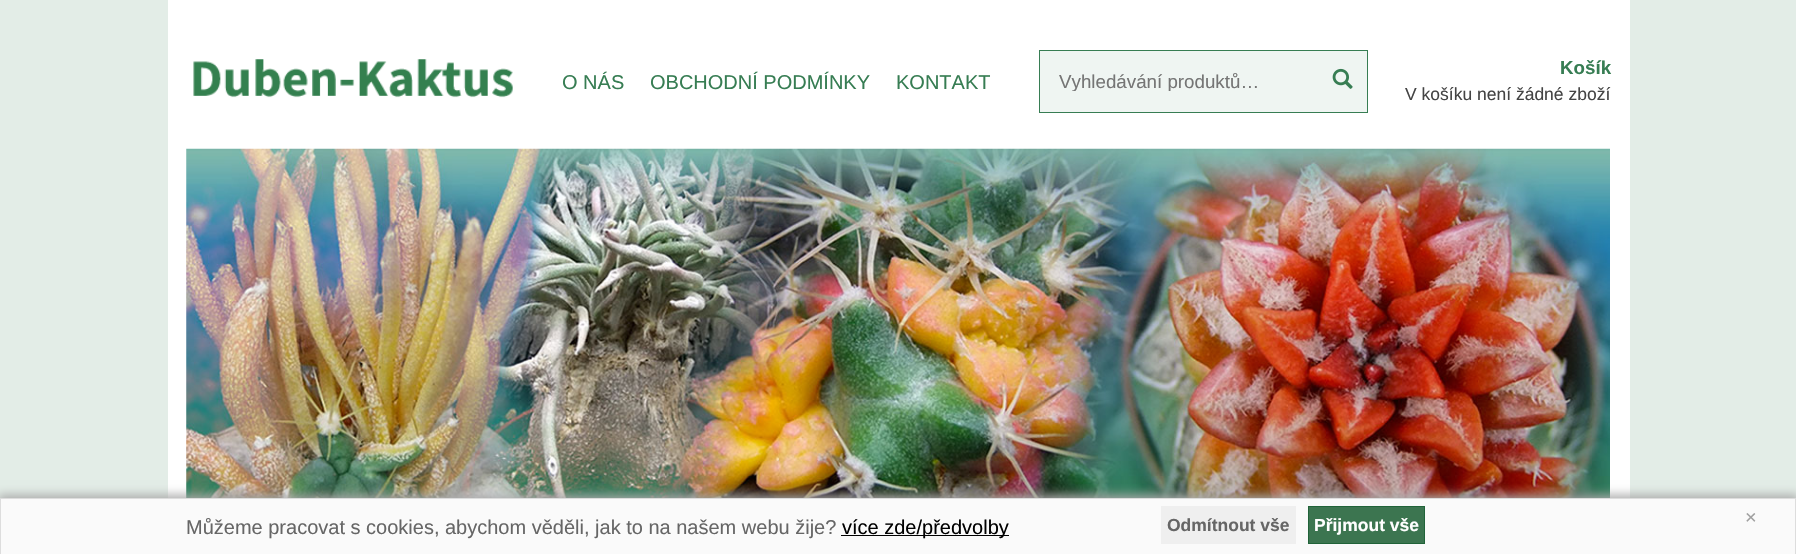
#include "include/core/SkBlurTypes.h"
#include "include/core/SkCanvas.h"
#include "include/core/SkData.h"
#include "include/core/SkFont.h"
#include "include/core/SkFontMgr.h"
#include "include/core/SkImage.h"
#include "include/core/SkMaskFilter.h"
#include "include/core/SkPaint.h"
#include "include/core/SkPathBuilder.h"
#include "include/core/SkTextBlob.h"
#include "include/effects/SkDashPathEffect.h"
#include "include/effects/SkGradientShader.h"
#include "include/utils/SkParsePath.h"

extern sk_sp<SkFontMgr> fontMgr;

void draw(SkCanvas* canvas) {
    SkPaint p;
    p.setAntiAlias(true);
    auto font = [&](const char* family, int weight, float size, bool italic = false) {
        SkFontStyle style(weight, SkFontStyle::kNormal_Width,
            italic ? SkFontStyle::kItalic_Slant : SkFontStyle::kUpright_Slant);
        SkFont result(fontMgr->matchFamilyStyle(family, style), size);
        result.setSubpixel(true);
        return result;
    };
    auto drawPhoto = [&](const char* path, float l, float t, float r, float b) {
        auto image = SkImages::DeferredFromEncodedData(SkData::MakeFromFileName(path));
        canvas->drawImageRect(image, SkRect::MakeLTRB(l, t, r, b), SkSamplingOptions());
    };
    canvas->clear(0xFFE3EDE7);
    p.setColor(0xFFFFFFFF);
    canvas->drawRect(SkRect::MakeLTRB(168, 0, 1630, 498), p);
    drawPhoto("media/1.png", 193, 59, 513, 98);
    auto font1 = font("Liberation Sans", 400, 20);
    p.setColor(0xFF377D53);
    {
        const struct { const char* s; float x, y; } items[] = {
            {"O NÁS", 562, 89},
            {"OBCHODNÍ PODMÍNKY", 650, 89},
            {"KONTAKT", 896, 89},
        };
        for (auto [s, x, y] : items) {
            canvas->drawString(s, x, y, font1, p);
        }
    }
    p.setColor(0xFFEFF5F2);
    canvas->drawRect(SkRect::MakeLTRB(1039.5f, 50.5f, 1367.5f, 112.5f), p);
    p.setStyle(SkPaint::kStroke_Style);
    p.setStrokeWidth(1);
    p.setColor(0xFF377D53);
    canvas->drawRect(SkRect::MakeLTRB(1039.5f, 50.5f, 1367.5f, 112.5f), p);
    canvas->save();
    canvas->clipRect(SkRect::MakeLTRB(1059, 70, 1304, 91));
    auto font2 = font("Liberation Sans", 400, 18.75f);
    p.setStyle(SkPaint::kFill_Style);
    p.setColor(0xFF757575);
    canvas->drawString("Vyhledávání produktů…", 1059, 88, font2, p);
    canvas->restore();
    drawPhoto("media/2.png", 1332, 68, 1353, 89);
    auto font3 = font("Liberation Sans", 700, 18.75f);
    p.setColor(0xFF377D53);
    canvas->drawString("Košík", 1560, 74, font3, p);
    auto font4 = font("Liberation Sans", 400, 17.5f);
    p.setColor(0xFF444444);
    canvas->drawString("V košíku není žádné zboží", 1405, 100, font4, p);
    drawPhoto("media/3.png", 186, 148, 1610, 498);
    p.setColor(0xFFAAAAAA);
    p.setMaskFilter(SkMaskFilter::MakeBlur(kNormal_SkBlurStyle, 5));
    canvas->drawRect(SkRect::MakeLTRB(-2, 495, 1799, 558), p);
    p.setMaskFilter(nullptr);
    p.setColor(0xFFFAFAFA);
    canvas->drawRect(SkRect::MakeLTRB(0.5f, 498.5f, 1795.5f, 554.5f), p);
    p.setStyle(SkPaint::kStroke_Style);
    p.setColor(0xFFDDDDDD);
    canvas->drawRect(SkRect::MakeLTRB(0.5f, 498.5f, 1795.5f, 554.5f), p);
    p.setStyle(SkPaint::kFill_Style);
    p.setColor(0xFF666666);
    canvas->drawString("Můžeme pracovat s cookies, abychom věděli, jak to na našem webu žije?", 186, 534, font1, p);
    p.setColor(0xFF000000);
    canvas->drawRect(SkRect::MakeLTRB(841, 535, 1009, 536), p);
    canvas->drawString("více zde/předvolby", 842, 534, font1, p);
    p.setColor(0xFFEFEFEF);
    canvas->drawRect(SkRect::MakeLTRB(1161, 506, 1296, 544), p);
    auto font5 = font("Liberation Sans", 700, 17.5f);
    p.setColor(0xFF666666);
    canvas->drawString("Odmítnout vše", 1167, 531, font5, p);
    p.setColor(0xFF3C7550);
    canvas->drawRect(SkRect::MakeLTRB(1308.5f, 506.5f, 1424.5f, 543.5f), p);
    p.setStyle(SkPaint::kStroke_Style);
    p.setColor(0xFF216339);
    canvas->drawRect(SkRect::MakeLTRB(1308.5f, 506.5f, 1424.5f, 543.5f), p);
    p.setStyle(SkPaint::kFill_Style);
    p.setColor(0xFFFFFFFF);
    canvas->drawString("Přijmout vše", 1314, 531, font5, p);
    p.setColor(0xFFA0A0A0);
    canvas->drawString("×", 1745, 524, font1, p);
}
